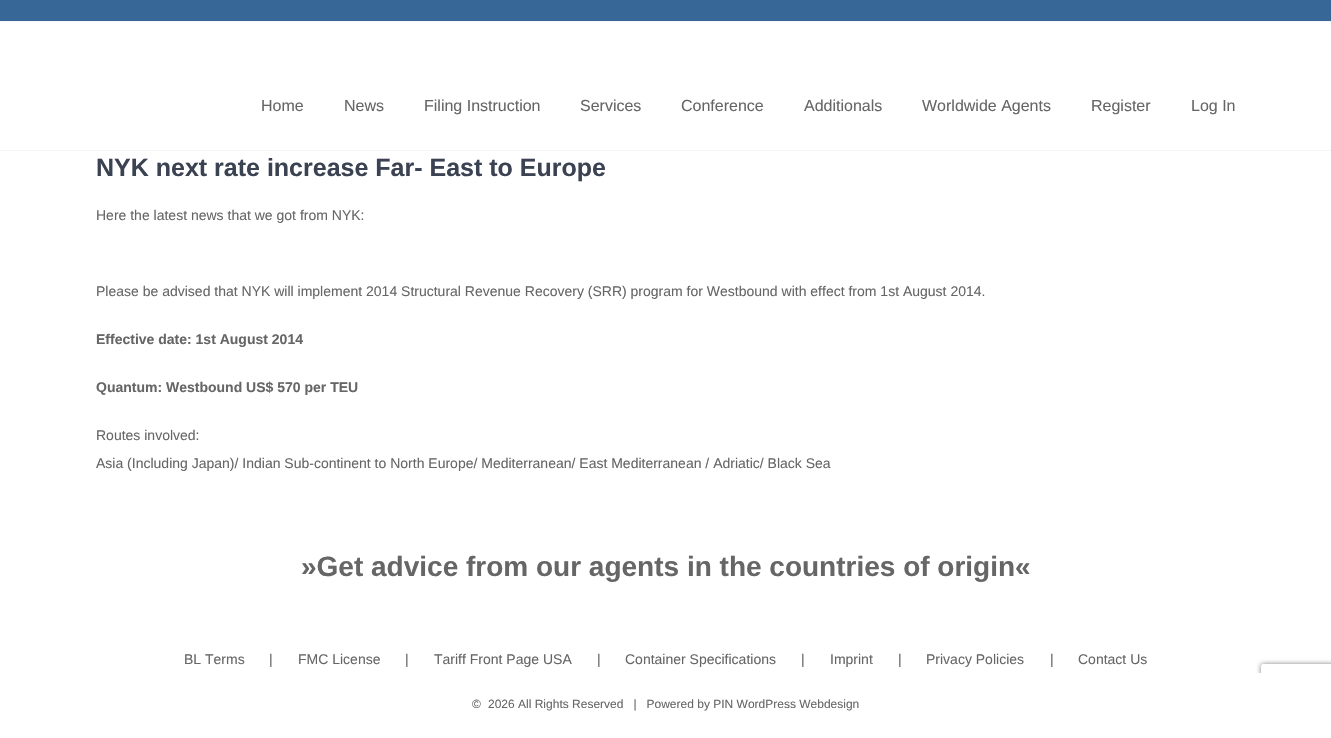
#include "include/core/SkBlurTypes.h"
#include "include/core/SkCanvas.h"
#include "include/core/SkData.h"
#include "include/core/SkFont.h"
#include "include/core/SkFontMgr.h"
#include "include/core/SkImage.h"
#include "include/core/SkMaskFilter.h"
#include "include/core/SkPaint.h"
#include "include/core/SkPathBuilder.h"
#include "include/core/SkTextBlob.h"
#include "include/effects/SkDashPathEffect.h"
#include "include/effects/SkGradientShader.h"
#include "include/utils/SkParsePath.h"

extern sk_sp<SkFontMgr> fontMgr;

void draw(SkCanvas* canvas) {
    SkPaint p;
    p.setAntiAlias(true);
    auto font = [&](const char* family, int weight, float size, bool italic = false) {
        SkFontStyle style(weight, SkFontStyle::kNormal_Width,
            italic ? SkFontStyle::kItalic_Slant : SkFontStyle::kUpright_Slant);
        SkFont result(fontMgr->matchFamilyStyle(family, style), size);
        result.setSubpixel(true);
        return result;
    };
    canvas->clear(0xFFFFFFFF);
    {
        const struct { float l, t, r, b; SkColor color; } items[] = {
            {0, 0, 1331, 21, 0xFF366796},
            {0, 21, 1331, 22, 0xFFF5F5F5},
            {0, 150, 1331, 151, 0xFFF5F5F5},
        };
        for (auto [l, t, r, b, color] : items) {
            p.setColor(color);
            canvas->drawRect(SkRect::MakeLTRB(l, t, r, b), p);
        }
    }
    auto font1 = font("Liberation Sans", 400, 16);
    p.setColor(0xFF666666);
    {
        const struct { const char* s; float x, y; } items[] = {
            {"Home", 261, 111},
            {"News", 344, 111},
            {"Filing Instruction", 424, 111},
            {"Services", 580, 111},
            {"Conference", 681, 111},
            {"Additionals", 804, 111},
            {"Worldwide Agents", 922, 111},
            {"Register", 1091, 111},
            {"Log In", 1191, 111},
        };
        for (auto [s, x, y] : items) {
            canvas->drawString(s, x, y, font1, p);
        }
    }
    auto font2 = font("Liberation Sans", 700, 25);
    p.setColor(0xFF3B4251);
    canvas->drawString("NYK next rate increase Far- East to Europe", 96, 176, font2, p);
    auto font3 = font("Liberation Sans", 400, 14);
    p.setColor(0xFF666666);
    canvas->drawString("Here the latest news that we got from NYK:", 96, 220, font3, p);
    canvas->drawString("Please be advised that NYK will implement 2014 Structural Revenue Recovery (SRR) program for Westbound with effect from 1st August 2014.", 96, 296, font3, p);
    auto font4 = font("Liberation Sans", 700, 14);
    canvas->drawString("Effective date: 1st August 2014", 96, 344, font4, p);
    canvas->drawString("Quantum: Westbound US$ 570 per TEU", 96, 392, font4, p);
    canvas->drawString("Routes involved:", 96, 440, font3, p);
    canvas->drawString("Asia (Including Japan)/ Indian Sub-continent to North Europe/ Mediterranean/ East Mediterranean / Adriatic/ Black Sea", 96, 468, font3, p);
    auto font5 = font("Liberation Sans", 700, 28);
    canvas->drawString("»Get advice from our agents in the countries of origin«", 301, 576, font5, p);
    {
        const struct { const char* s; float x, y; } items[] = {
            {"BL Terms", 184, 664},
            {"|", 269, 664},
            {"FMC License", 298, 664},
            {"|", 405, 664},
            {"Tariff Front Page USA", 434, 664},
            {"|", 597, 664},
            {"Container Specifications", 625, 664},
            {"|", 801, 664},
            {"Imprint", 830, 664},
            {"|", 898, 664},
            {"Privacy Policies", 926, 664},
            {"|", 1050, 664},
            {"Contact Us", 1078, 664},
        };
        for (auto [s, x, y] : items) {
            canvas->drawString(s, x, y, font3, p);
        }
    }
    canvas->save();
    canvas->clipPath(SkPathBuilder(SkPathFillType::kEvenOdd).moveTo(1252, 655).lineTo(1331, 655).lineTo(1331, 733).lineTo(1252, 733).close().moveTo(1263, 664).lineTo(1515, 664).cubicTo(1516, 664, 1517, 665, 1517, 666).lineTo(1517, 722).cubicTo(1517, 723, 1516, 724, 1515, 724).lineTo(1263, 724).cubicTo(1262, 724, 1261, 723, 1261, 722).lineTo(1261, 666).cubicTo(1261, 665, 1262, 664, 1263, 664).close().detach(), true);
    p.setColor(0xFF808080);
    p.setMaskFilter(SkMaskFilter::MakeBlur(kNormal_SkBlurStyle, 2.5f));
    canvas->drawRoundRect(SkRect::MakeLTRB(1261, 664, 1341, 724), 2, 2, p);
    p.setMaskFilter(nullptr);
    canvas->restore();
    p.setColor(0xFFFFFFFF);
    canvas->drawRect(SkRect::MakeLTRB(1256, 673, 1331, 729), p);
    auto font6 = font("Liberation Sans", 400, 12);
    p.setColor(0xFF666666);
    canvas->drawString("©", 472, 708, font6, p);
    canvas->drawString("2026 All Rights Reserved   |   Powered by PIN WordPress Webdesign", 488, 708, font6, p);
}
